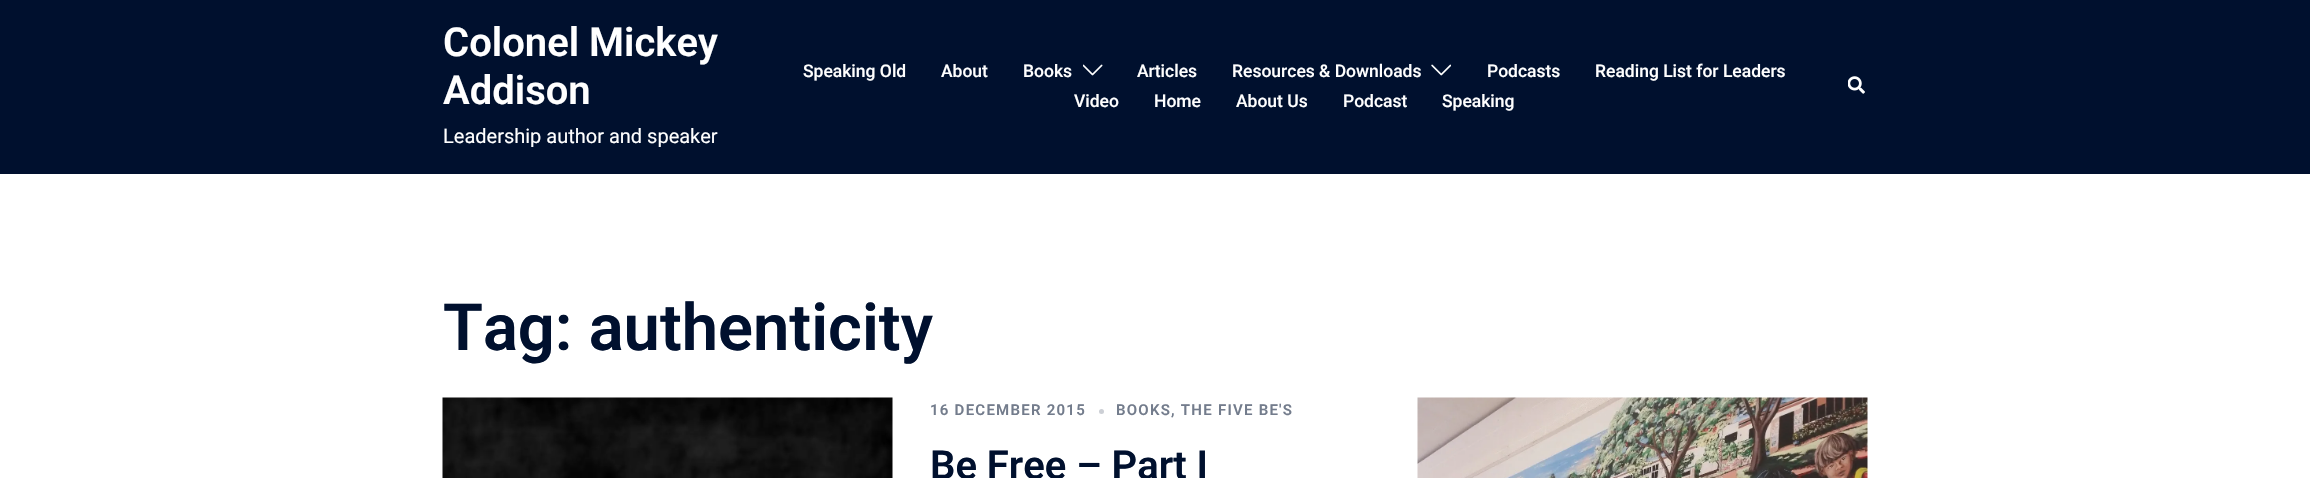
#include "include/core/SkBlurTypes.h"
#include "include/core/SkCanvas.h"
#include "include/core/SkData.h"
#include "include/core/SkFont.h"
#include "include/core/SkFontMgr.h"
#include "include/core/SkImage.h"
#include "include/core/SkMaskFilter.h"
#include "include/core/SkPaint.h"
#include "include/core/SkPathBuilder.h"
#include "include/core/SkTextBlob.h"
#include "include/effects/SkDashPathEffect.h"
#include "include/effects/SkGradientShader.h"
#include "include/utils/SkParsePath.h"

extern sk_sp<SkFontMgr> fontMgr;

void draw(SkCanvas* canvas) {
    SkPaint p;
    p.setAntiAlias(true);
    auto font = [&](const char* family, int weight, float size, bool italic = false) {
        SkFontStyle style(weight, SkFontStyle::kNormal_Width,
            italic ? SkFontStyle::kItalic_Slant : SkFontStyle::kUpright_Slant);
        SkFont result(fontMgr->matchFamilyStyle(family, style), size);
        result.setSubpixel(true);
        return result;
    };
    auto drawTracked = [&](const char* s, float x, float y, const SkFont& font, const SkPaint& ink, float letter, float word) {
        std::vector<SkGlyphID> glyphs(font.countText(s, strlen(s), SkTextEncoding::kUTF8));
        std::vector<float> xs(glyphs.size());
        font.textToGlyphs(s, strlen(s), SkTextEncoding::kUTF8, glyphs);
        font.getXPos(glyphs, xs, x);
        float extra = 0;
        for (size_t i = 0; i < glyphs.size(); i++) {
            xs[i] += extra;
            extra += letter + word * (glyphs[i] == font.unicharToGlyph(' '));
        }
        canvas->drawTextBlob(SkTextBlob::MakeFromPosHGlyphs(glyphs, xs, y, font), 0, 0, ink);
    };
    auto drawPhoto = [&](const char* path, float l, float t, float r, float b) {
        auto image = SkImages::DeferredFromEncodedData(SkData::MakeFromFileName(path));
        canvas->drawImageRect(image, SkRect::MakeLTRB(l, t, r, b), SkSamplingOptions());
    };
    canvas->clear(0xFFFFFFFF);
    p.setColor(0xFF00102E);
    canvas->drawRect(SkRect::MakeLTRB(0, 0, 2310, 174), p);
    auto font1 = font("Roboto", 600, 40);
    p.setColor(0xFFFFFFFF);
    canvas->drawString("Colonel Mickey", 443, 56, font1, p);
    canvas->drawString("Addison", 443, 104, font1, p);
    auto font2 = font("Roboto", 400, 20);
    canvas->drawString("Leadership author and speaker", 443, 143, font2, p);
    auto font3 = font("Roboto", 500, 17.5f);
    {
        const struct { const char* s; float x, y; } items[] = {
            {"Speaking Old", 803, 77},
            {"About", 941, 77},
            {"Books", 1023, 77},
        };
        for (auto [s, x, y] : items) {
            canvas->drawString(s, x, y, font3, p);
        }
    }
    drawPhoto("media/1.png", 1083, 64, 1103, 76);
    canvas->drawString("Articles", 1137, 77, font3, p);
    canvas->drawString("Resources & Downloads", 1232, 77, font3, p);
    drawPhoto("media/2.png", 1431, 64, 1451, 76);
    {
        const struct { const char* s; float x, y; } items[] = {
            {"Podcasts", 1487, 77},
            {"Reading List for Leaders", 1595, 77},
            {"Video", 1074, 107},
            {"Home", 1154, 107},
            {"About Us", 1236, 107},
            {"Podcast", 1343, 107},
            {"Speaking", 1442, 107},
        };
        for (auto [s, x, y] : items) {
            canvas->drawString(s, x, y, font3, p);
        }
    }
    drawPhoto("media/3.png", 1848, 76, 1865, 94);
    auto font4 = font("Roboto", 600, 65);
    p.setColor(0xFF00102E);
    canvas->drawString("Tag: authenticity", 443, 350, font4, p);
    drawPhoto("media/4.png", 442, 397, 893, 478);
    auto font5 = font("Roboto", 600, 15);
    p.setColor(0xFF737C8C);
    drawTracked("16 DECEMBER 2015", 930, 415, font5, p, 1.25f, 0);
    p.setColor(0xFFCCCFD5);
    canvas->drawCircle(1101.5f, 411.5f, 2.5f, p);
    p.setColor(0xFF737C8C);
    drawTracked("BOOKS, THE FIVE BE'S", 1116, 415, font5, p, 1.25f, 0);
    p.setColor(0xFF00102E);
    canvas->drawString("Be Free – Part I", 930, 479, font1, p);
    drawPhoto("media/5.png", 1417, 397, 1868, 478);
}
